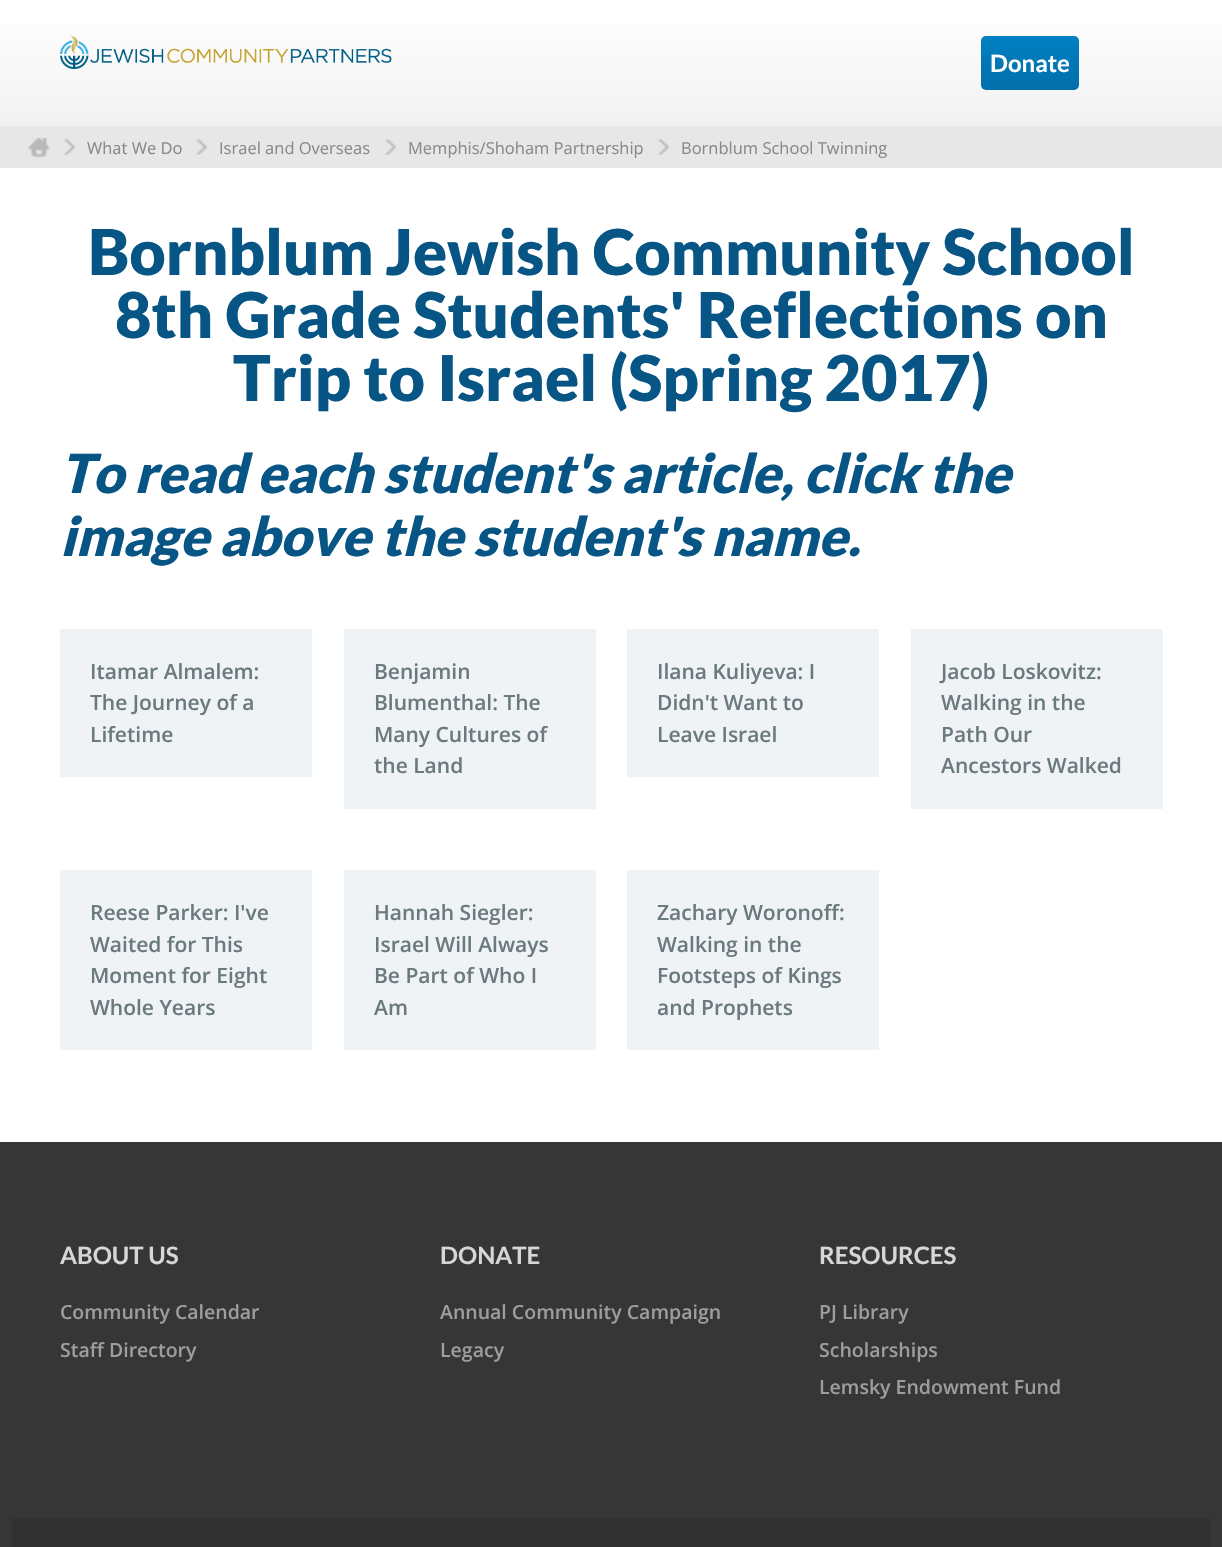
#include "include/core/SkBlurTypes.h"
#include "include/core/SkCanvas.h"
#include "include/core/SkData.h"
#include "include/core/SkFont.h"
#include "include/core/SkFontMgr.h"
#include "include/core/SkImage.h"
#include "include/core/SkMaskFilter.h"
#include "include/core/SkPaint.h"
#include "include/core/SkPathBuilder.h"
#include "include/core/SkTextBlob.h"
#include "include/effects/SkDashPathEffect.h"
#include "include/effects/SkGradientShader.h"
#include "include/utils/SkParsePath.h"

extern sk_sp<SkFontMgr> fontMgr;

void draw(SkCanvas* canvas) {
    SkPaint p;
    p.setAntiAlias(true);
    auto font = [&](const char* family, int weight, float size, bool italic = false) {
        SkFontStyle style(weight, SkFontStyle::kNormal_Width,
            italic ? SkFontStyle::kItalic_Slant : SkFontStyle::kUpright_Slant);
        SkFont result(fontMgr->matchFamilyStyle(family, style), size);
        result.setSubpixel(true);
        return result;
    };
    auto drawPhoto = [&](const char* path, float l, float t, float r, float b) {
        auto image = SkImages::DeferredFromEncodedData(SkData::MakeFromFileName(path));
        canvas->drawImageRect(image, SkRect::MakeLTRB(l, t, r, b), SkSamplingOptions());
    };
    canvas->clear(0xFFFFFFFF);
    {
        const SkColor colors[] = {0xFFFFFFFF, 0xFFF2F2F2};
        const float stops[] = {0, 1};
        const SkPoint ends[] = {{611, 0}, {611, 126}};
        p.setShader(SkGradientShader::MakeLinear(ends, colors, stops, 2, SkTileMode::kClamp));
        p.setAlpha(255);
    }
    canvas->drawRect(SkRect::MakeLTRB(0, 24, 1222, 126), p);
    drawPhoto("media/1.png", 60, 36, 392, 69);
    {
        const SkColor colors[] = {0xFF0180C3, 0xFF016FAA};
        const float stops[] = {0, 1};
        const SkPoint ends[] = {{1030, 36}, {1030, 90}};
        p.setShader(SkGradientShader::MakeLinear(ends, colors, stops, 2, SkTileMode::kClamp));
        p.setAlpha(255);
    }
    canvas->drawRoundRect(SkRect::MakeLTRB(981, 36, 1079, 90), 5, 5, p);
    auto font1 = font("Lato", 700, 24);
    p.setShader(nullptr);
    p.setColor(0xFFFFFFFF);
    canvas->drawString("Donate", 990, 72, font1, p);
    p.setColor(0xFFE7E7E7);
    canvas->drawRect(SkRect::MakeLTRB(0, 126, 1222, 168), p);
    drawPhoto("media/2.png", 28, 138, 50, 158);
    drawPhoto("media/3.png", 64, 139, 75, 155);
    auto font2 = font("Open Sans", 400, 16.5f);
    p.setColor(0xFF8A8989);
    canvas->drawString("What We Do", 87, 154, font2, p);
    drawPhoto("media/3.png", 196, 139, 207, 155);
    canvas->drawString("Israel and Overseas", 219, 154, font2, p);
    drawPhoto("media/4.png", 385, 139, 396, 155);
    canvas->drawString("Memphis/Shoham Partnership", 408, 154, font2, p);
    drawPhoto("media/4.png", 658, 139, 669, 155);
    canvas->drawString("Bornblum School Twinning", 681, 154, font2, p);
    auto font3 = font("Lato", 900, 63);
    p.setColor(0xFF075585);
    {
        const struct { const char* s; float x, y; } items[] = {
            {"Bornblum Jewish Community School", 88, 275},
            {"8th Grade Students' Reflections on", 115, 338},
            {"Trip to Israel (Spring 2017)", 233, 401},
        };
        for (auto [s, x, y] : items) {
            canvas->drawString(s, x, y, font3, p);
        }
    }
    auto font4 = font("Lato", 900, 54, true);
    canvas->drawString("To read each student's article, click the", 60, 493, font4, p);
    canvas->drawString("image above the student's name.", 60, 556, font4, p);
    p.setColor(0xFFF0F3F5);
    canvas->drawRect(SkRect::MakeLTRB(60, 629, 312, 777), p);
    auto font5 = font("Open Sans", 600, 21);
    p.setColor(0xFF6B7A7E);
    {
        const struct { const char* s; float x, y; } items[] = {
            {"Itamar Almalem:", 90, 679},
            {"The Journey of a", 90, 710},
            {"Lifetime", 90, 742},
        };
        for (auto [s, x, y] : items) {
            canvas->drawString(s, x, y, font5, p);
        }
    }
    p.setColor(0xFFF0F3F5);
    canvas->drawRect(SkRect::MakeLTRB(344, 629, 596, 809), p);
    p.setColor(0xFF6B7A7E);
    {
        const struct { const char* s; float x, y; } items[] = {
            {"Benjamin", 374, 679},
            {"Blumenthal: The", 374, 710},
            {"Many Cultures of", 374, 742},
            {"the Land", 374, 773},
        };
        for (auto [s, x, y] : items) {
            canvas->drawString(s, x, y, font5, p);
        }
    }
    p.setColor(0xFFF0F3F5);
    canvas->drawRect(SkRect::MakeLTRB(627, 629, 879, 777), p);
    p.setColor(0xFF6B7A7E);
    {
        const struct { const char* s; float x, y; } items[] = {
            {"Ilana Kuliyeva: I", 657, 679},
            {"Didn't Want to", 657, 710},
            {"Leave Israel", 657, 742},
        };
        for (auto [s, x, y] : items) {
            canvas->drawString(s, x, y, font5, p);
        }
    }
    p.setColor(0xFFF0F3F5);
    canvas->drawRect(SkRect::MakeLTRB(911, 629, 1163, 809), p);
    p.setColor(0xFF6B7A7E);
    {
        const struct { const char* s; float x, y; } items[] = {
            {"Jacob Loskovitz:", 941, 679},
            {"Walking in the", 941, 710},
            {"Path Our", 941, 742},
            {"Ancestors Walked", 941, 773},
        };
        for (auto [s, x, y] : items) {
            canvas->drawString(s, x, y, font5, p);
        }
    }
    p.setColor(0xFFF0F3F5);
    canvas->drawRect(SkRect::MakeLTRB(60, 870, 312, 1050), p);
    p.setColor(0xFF6B7A7E);
    {
        const struct { const char* s; float x, y; } items[] = {
            {"Reese Parker: I've", 90, 920},
            {"Waited for This", 90, 952},
            {"Moment for Eight", 90, 983},
            {"Whole Years", 90, 1015},
        };
        for (auto [s, x, y] : items) {
            canvas->drawString(s, x, y, font5, p);
        }
    }
    p.setColor(0xFFF0F3F5);
    canvas->drawRect(SkRect::MakeLTRB(344, 870, 596, 1050), p);
    p.setColor(0xFF6B7A7E);
    {
        const struct { const char* s; float x, y; } items[] = {
            {"Hannah Siegler:", 374, 920},
            {"Israel Will Always", 374, 952},
            {"Be Part of Who I", 374, 983},
            {"Am", 374, 1015},
        };
        for (auto [s, x, y] : items) {
            canvas->drawString(s, x, y, font5, p);
        }
    }
    p.setColor(0xFFF0F3F5);
    canvas->drawRect(SkRect::MakeLTRB(627, 870, 879, 1050), p);
    p.setColor(0xFF6B7A7E);
    {
        const struct { const char* s; float x, y; } items[] = {
            {"Zachary Woronoff:", 657, 920},
            {"Walking in the", 657, 952},
            {"Footsteps of Kings", 657, 983},
            {"and Prophets", 657, 1015},
        };
        for (auto [s, x, y] : items) {
            canvas->drawString(s, x, y, font5, p);
        }
    }
    p.setColor(0xFF363636);
    canvas->drawRect(SkRect::MakeLTRB(0, 1142, 1222, 1547), p);
    p.setColor(0xFFD6D6D6);
    canvas->drawString("ABOUT US", 60, 1264, font1, p);
    auto font6 = font("Open Sans", 600, 19.5f);
    p.setColor(0xFF9D9D9D);
    canvas->drawString("Community Calendar", 60, 1319, font6, p);
    canvas->drawString("Staff Directory", 60, 1357, font6, p);
    p.setColor(0xFFD6D6D6);
    canvas->drawString("DONATE", 440, 1264, font1, p);
    p.setColor(0xFF9D9D9D);
    canvas->drawString("Annual Community Campaign", 440, 1319, font6, p);
    canvas->drawString("Legacy", 440, 1357, font6, p);
    p.setColor(0xFFD6D6D6);
    canvas->drawString("RESOURCES", 819, 1264, font1, p);
    p.setColor(0xFF9D9D9D);
    {
        const struct { const char* s; float x, y; } items[] = {
            {"PJ Library", 819, 1319},
            {"Scholarships", 819, 1357},
            {"Lemsky Endowment Fund", 819, 1394},
        };
        for (auto [s, x, y] : items) {
            canvas->drawString(s, x, y, font6, p);
        }
    }
    p.setColor(0xFF313131);
    canvas->drawRect(SkRect::MakeLTRB(12, 1518, 1211, 1547), p);
}
